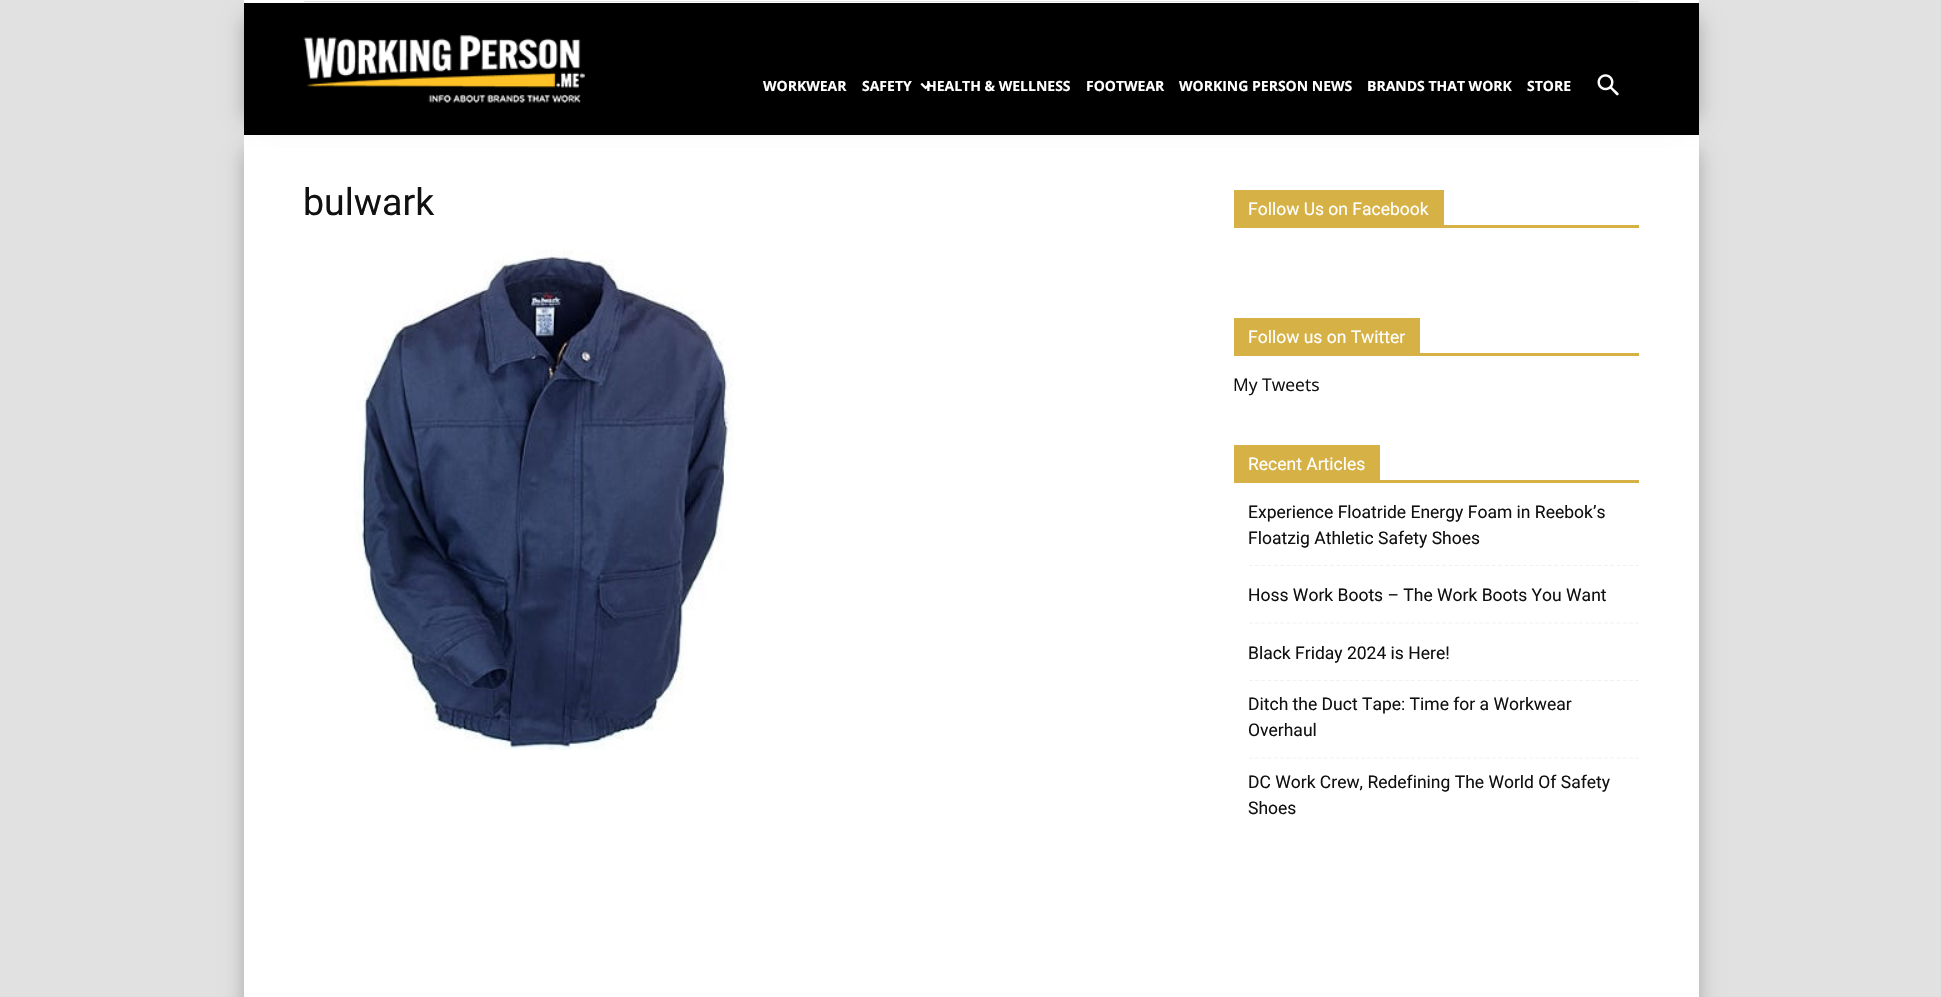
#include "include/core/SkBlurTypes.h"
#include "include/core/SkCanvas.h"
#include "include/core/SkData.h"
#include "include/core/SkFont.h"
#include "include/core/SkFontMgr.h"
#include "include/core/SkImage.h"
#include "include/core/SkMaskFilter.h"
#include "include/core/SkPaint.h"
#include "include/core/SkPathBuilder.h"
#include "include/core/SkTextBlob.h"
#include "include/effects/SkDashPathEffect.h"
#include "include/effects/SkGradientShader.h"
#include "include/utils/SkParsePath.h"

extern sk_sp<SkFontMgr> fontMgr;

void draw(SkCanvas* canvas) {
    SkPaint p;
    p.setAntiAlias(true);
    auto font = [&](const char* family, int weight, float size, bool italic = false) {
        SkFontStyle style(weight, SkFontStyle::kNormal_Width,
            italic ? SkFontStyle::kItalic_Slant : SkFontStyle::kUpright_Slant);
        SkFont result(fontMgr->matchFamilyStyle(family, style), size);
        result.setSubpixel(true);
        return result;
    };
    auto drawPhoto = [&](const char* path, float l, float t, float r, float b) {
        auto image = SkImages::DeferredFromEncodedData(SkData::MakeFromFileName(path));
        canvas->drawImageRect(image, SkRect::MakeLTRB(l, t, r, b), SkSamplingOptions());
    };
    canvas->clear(0xFFE1E1E1);
    p.setColor(0x40000000);
    p.setMaskFilter(SkMaskFilter::MakeBlur(kNormal_SkBlurStyle, 9.5f));
    canvas->drawRect(SkRect::MakeLTRB(244, 150, 1669, 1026), p);
    p.setMaskFilter(nullptr);
    p.setMaskFilter(SkMaskFilter::MakeBlur(kNormal_SkBlurStyle, 9.5f));
    canvas->drawRect(SkRect::MakeLTRB(274, 150, 1699, 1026), p);
    p.setMaskFilter(nullptr);
    p.setColor(0xFFFFFFFF);
    canvas->drawRect(SkRect::MakeLTRB(244, 135, 1699, 997), p);
    p.setColor(0x40000000);
    p.setMaskFilter(SkMaskFilter::MakeBlur(kNormal_SkBlurStyle, 9.5f));
    canvas->drawRect(SkRect::MakeLTRB(244, 18, 1669, 120), p);
    p.setMaskFilter(nullptr);
    p.setMaskFilter(SkMaskFilter::MakeBlur(kNormal_SkBlurStyle, 9.5f));
    canvas->drawRect(SkRect::MakeLTRB(274, 18, 1699, 120), p);
    p.setMaskFilter(nullptr);
    {
        const struct { float l, t, r, b; SkColor color; } items[] = {
            {244, 0, 1699, 3, 0xFFFFFFFF},
            {304, 1, 1639, 2, 0xFFE0E0E0},
            {244, 3, 1699, 135, 0xFF000000},
        };
        for (auto [l, t, r, b, color] : items) {
            p.setColor(color);
            canvas->drawRect(SkRect::MakeLTRB(l, t, r, b), p);
        }
    }
    drawPhoto("media/1.png", 303, 35, 585, 103);
    auto font1 = font("Open Sans", 700, 14);
    p.setColor(0xFFFFFFFF);
    canvas->drawString("WORKWEAR", 763, 91, font1, p);
    canvas->drawString("SAFETY", 862, 91, font1, p);
    drawPhoto("media/2.png", 920, 82, 931, 90);
    {
        const struct { const char* s; float x, y; } items[] = {
            {"HEALTH & WELLNESS", 926, 91},
            {"FOOTWEAR", 1086, 91},
            {"WORKING PERSON NEWS", 1179, 91},
            {"BRANDS THAT WORK", 1367, 91},
            {"STORE", 1527, 91},
        };
        for (auto [s, x, y] : items) {
            canvas->drawString(s, x, y, font1, p);
        }
    }
    drawPhoto("media/3.png", 1597, 74, 1619, 96);
    auto font2 = font("Roboto", 400, 37.5f);
    p.setColor(0xFF111111);
    canvas->drawString("bulwark", 303, 215, font2, p);
    drawPhoto("media/4.png", 354, 250, 734, 750);
    p.setColor(0xFFD6B246);
    canvas->drawRect(SkRect::MakeLTRB(1234, 225, 1639, 228), p);
    canvas->drawRect(SkRect::MakeLTRB(1234, 190, 1444, 225), p);
    auto font3 = font("Roboto", 400, 17.5f);
    p.setColor(0xFFFFFFFF);
    canvas->drawString("Follow Us on Facebook", 1248, 215, font3, p);
    p.setColor(0xFFD6B246);
    canvas->drawRect(SkRect::MakeLTRB(1234, 353, 1639, 356), p);
    canvas->drawRect(SkRect::MakeLTRB(1234, 318, 1420, 353), p);
    p.setColor(0xFFFFFFFF);
    canvas->drawString("Follow us on Twitter", 1248, 343, font3, p);
    auto font4 = font("Open Sans", 400, 17.5f);
    p.setColor(0xFF111111);
    canvas->drawString("My Tweets", 1233, 391, font4, p);
    p.setColor(0xFFD6B246);
    canvas->drawRect(SkRect::MakeLTRB(1234, 480, 1639, 483), p);
    canvas->drawRect(SkRect::MakeLTRB(1234, 445, 1380, 480), p);
    p.setColor(0xFFFFFFFF);
    canvas->drawString("Recent Articles", 1248, 470, font3, p);
    p.setStyle(SkPaint::kStroke_Style);
    p.setStrokeWidth(1.2f);
    p.setColor(0xFFF1F1F1);
    p.setPathEffect(SkDashPathEffect::Make({{3.75f, 2.48f}}, 0));
    canvas->drawPath(SkPathBuilder().moveTo(1249, 565.5f).lineTo(1639, 565.5f).detach(), p);
    p.setPathEffect(nullptr);
    p.setStyle(SkPaint::kFill_Style);
    p.setColor(0xFF111111);
    canvas->drawString("Experience Floatride Energy Foam in Reebok’s", 1248, 518, font3, p);
    canvas->drawString("Floatzig Athletic Safety Shoes", 1248, 544, font3, p);
    p.setStyle(SkPaint::kStroke_Style);
    p.setColor(0xFFF1F1F1);
    p.setPathEffect(SkDashPathEffect::Make({{3.75f, 2.48f}}, 0));
    canvas->drawPath(SkPathBuilder().moveTo(1249, 623).lineTo(1639, 623).detach(), p);
    p.setPathEffect(nullptr);
    p.setStyle(SkPaint::kFill_Style);
    p.setColor(0xFF111111);
    canvas->drawString("Hoss Work Boots – The Work Boots You Want", 1248, 601, font3, p);
    p.setStyle(SkPaint::kStroke_Style);
    p.setColor(0xFFF1F1F1);
    p.setPathEffect(SkDashPathEffect::Make({{3.75f, 2.48f}}, 0));
    canvas->drawPath(SkPathBuilder().moveTo(1249, 680.5f).lineTo(1639, 680.5f).detach(), p);
    p.setPathEffect(nullptr);
    p.setStyle(SkPaint::kFill_Style);
    p.setColor(0xFF111111);
    canvas->drawString("Black Friday 2024 is Here!", 1248, 659, font3, p);
    p.setStyle(SkPaint::kStroke_Style);
    p.setColor(0xFFF1F1F1);
    p.setPathEffect(SkDashPathEffect::Make({{3.75f, 2.48f}}, 0));
    canvas->drawPath(SkPathBuilder().moveTo(1249, 758).lineTo(1639, 758).detach(), p);
    p.setPathEffect(nullptr);
    p.setStyle(SkPaint::kFill_Style);
    p.setColor(0xFF111111);
    {
        const struct { const char* s; float x, y; } items[] = {
            {"Ditch the Duct Tape: Time for a Workwear", 1248, 710},
            {"Overhaul", 1248, 736},
            {"DC Work Crew, Redefining The World Of Safety", 1248, 788},
            {"Shoes", 1248, 814},
        };
        for (auto [s, x, y] : items) {
            canvas->drawString(s, x, y, font3, p);
        }
    }
}
